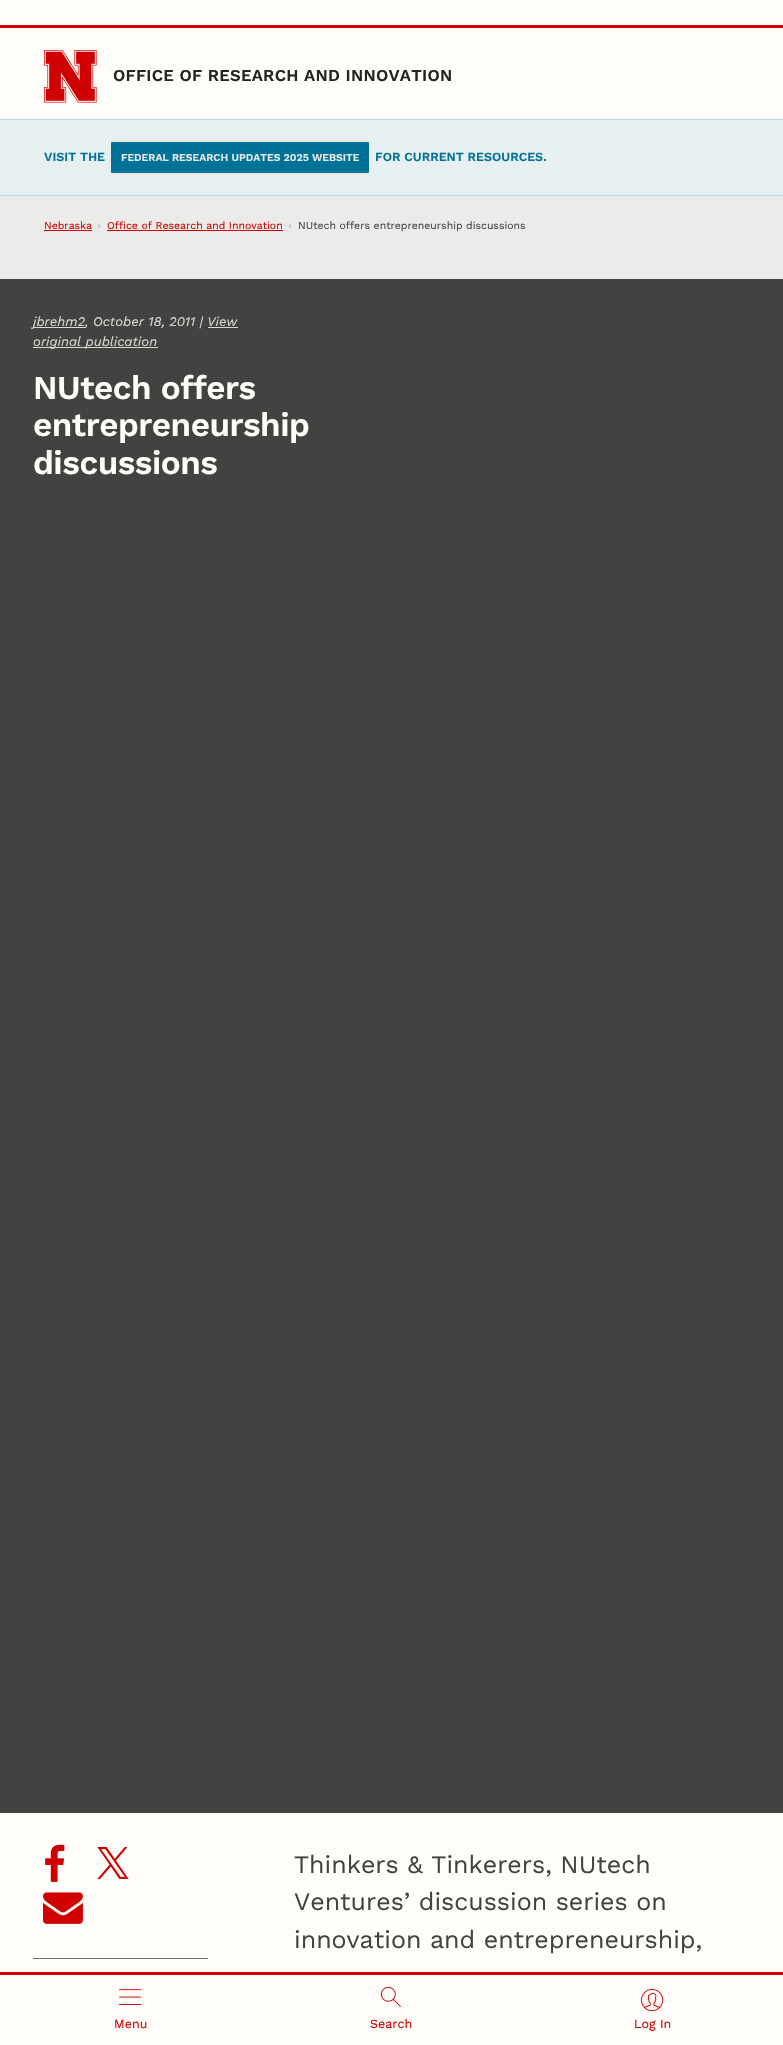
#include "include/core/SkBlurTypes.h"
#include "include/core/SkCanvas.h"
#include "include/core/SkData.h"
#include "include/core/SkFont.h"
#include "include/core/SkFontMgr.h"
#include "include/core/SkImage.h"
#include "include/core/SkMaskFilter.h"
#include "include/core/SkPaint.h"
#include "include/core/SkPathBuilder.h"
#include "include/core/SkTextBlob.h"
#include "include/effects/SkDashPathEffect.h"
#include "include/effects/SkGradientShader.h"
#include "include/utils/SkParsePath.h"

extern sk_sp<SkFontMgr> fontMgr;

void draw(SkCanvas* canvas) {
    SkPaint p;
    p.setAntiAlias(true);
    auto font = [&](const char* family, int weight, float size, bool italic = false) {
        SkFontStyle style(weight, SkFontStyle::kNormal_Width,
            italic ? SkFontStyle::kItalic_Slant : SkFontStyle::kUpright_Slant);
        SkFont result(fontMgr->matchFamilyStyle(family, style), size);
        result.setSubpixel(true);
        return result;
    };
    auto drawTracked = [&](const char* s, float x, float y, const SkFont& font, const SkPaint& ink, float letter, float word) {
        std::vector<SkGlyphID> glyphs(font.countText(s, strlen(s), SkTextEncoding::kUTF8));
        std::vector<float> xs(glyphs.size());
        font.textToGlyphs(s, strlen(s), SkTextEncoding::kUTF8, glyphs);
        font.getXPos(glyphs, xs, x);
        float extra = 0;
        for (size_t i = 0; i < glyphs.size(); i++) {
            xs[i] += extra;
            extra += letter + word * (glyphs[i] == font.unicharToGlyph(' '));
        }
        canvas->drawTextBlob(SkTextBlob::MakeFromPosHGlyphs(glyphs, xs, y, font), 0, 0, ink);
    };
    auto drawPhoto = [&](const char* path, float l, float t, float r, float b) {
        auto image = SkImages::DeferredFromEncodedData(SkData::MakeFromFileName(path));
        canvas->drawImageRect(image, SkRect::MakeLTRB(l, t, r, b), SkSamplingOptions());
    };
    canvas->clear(0xFFFEFDFA);
    p.setColor(0xFFD00000);
    canvas->drawRect(SkRect::MakeLTRB(0, 25, 783, 28), p);
    drawPhoto("media/1.png", 44, 50, 97, 103);
    auto font1 = font("Work Sans", 600, 16.6f);
    p.setColor(0xFF242423);
    drawTracked("OFFICE OF RESEARCH AND INNOVATION", 113, 81, font1, p, 0.25f, 0);
    p.setColor(0xFFD00000);
    canvas->drawRect(SkRect::MakeLTRB(0, 1972, 783, 1975), p);
    drawPhoto("media/2.png", 119, 1989, 142, 2005);
    auto font2 = font("Work Sans", 400, 12.5f);
    canvas->drawString("Menu", 114, 2028, font2, p);
    drawPhoto("media/3.png", 380, 1986, 401, 2007);
    canvas->drawString("Search", 370, 2028, font2, p);
    drawPhoto("media/4.png", 641, 1989, 664, 2011);
    canvas->drawString("Log In", 634, 2028, font2, p);
    {
        const struct { float l, t, r, b; SkColor color; } items[] = {
            {0, 120, 783, 195, 0xFFE7F0F1},
            {0, 119, 783, 120, 0xFFB9D7DF},
            {0, 195, 783, 196, 0xFFB9D7DF},
        };
        for (auto [l, t, r, b, color] : items) {
            p.setColor(color);
            canvas->drawRect(SkRect::MakeLTRB(l, t, r, b), p);
        }
    }
    auto font3 = font("Work Sans", 600, 12.5f);
    p.setColor(0xFF007197);
    canvas->drawString("VISIT THE", 44, 161, font3, p);
    canvas->drawRoundRect(SkRect::MakeLTRB(110, 141, 370, 174), 2, 2, p);
    p.setStyle(SkPaint::kStroke_Style);
    p.setStrokeWidth(2);
    p.setColor(0xFFEBEBEA);
    canvas->drawRoundRect(SkRect::MakeLTRB(110, 141, 370, 174), 2, 2, p);
    auto font4 = font("Work Sans", 600, 10.5f);
    p.setStyle(SkPaint::kFill_Style);
    canvas->drawString("FEDERAL RESEARCH UPDATES 2025 WEBSITE", 121, 161, font4, p);
    p.setColor(0xFF007197);
    canvas->drawString("FOR CURRENT RESOURCES.", 375, 161, font3, p);
    p.setColor(0xFFEBEBEA);
    canvas->drawRect(SkRect::MakeLTRB(0, 196, 783, 279), p);
    auto font5 = font("Work Sans", 400, 10.5f);
    p.setColor(0xFFD00000);
    canvas->drawString("Nebraska", 44, 229, font5, p);
    canvas->drawRect(SkRect::MakeLTRB(44, 230, 92, 231), p);
    p.setColor(0xFFC7C8CA);
    canvas->drawPath(SkPathBuilder().moveTo(98, 229).lineTo(98, 223).lineTo(101, 226).close().detach(), p);
    p.setColor(0xFFD00000);
    canvas->drawString("Office of Research and Innovation", 107, 229, font5, p);
    canvas->drawRect(SkRect::MakeLTRB(107, 230, 283, 231), p);
    p.setColor(0xFFC7C8CA);
    canvas->drawPath(SkPathBuilder().moveTo(289, 229).lineTo(289, 223).lineTo(292, 226).close().detach(), p);
    p.setColor(0xFF424240);
    canvas->drawString("NUtech offers entrepreneurship discussions", 298, 229, font5, p);
    canvas->drawRect(SkRect::MakeLTRB(0, 279, 783, 1813), p);
    p.setColor(0xFFD8D8D5);
    canvas->drawRect(SkRect::MakeLTRB(33, 327, 86, 328), p);
    auto font6 = font("Work Sans", 400, 13.25f, true);
    canvas->drawString("jbrehm2, October 18, 2011 | View", 33, 326, font6, p);
    canvas->drawRect(SkRect::MakeLTRB(208, 327, 238, 328), p);
    canvas->drawRect(SkRect::MakeLTRB(33, 347, 158, 348), p);
    canvas->drawString("original publication", 33, 346, font6, p);
    auto font7 = font("Work Sans", 600, 33.25f);
    p.setColor(0xFFFEFDFA);
    {
        const struct { const char* s; float x, y; } items[] = {
            {"NUtech offers", 33, 399},
            {"entrepreneurship", 33, 436},
            {"discussions", 33, 474},
        };
        for (auto [s, x, y] : items) {
            drawTracked(s, x, y, font7, p, -0.5f, 0);
        }
    }
    drawPhoto("media/5.png", 45, 1844, 65, 1882);
    drawPhoto("media/6.png", 97, 1847, 129, 1879);
    drawPhoto("media/7.png", 43, 1892, 83, 1924);
    p.setColor(0xFF6B6B68);
    canvas->drawRect(SkRect::MakeLTRB(33, 1958, 208, 1959), p);
    auto font8 = font("Work Sans", 400, 25);
    p.setColor(0xFF424240);
    {
        const struct { const char* s; float x, y; } items[] = {
            {"Thinkers & Tinkerers, NUtech", 294, 1873},
            {"Ventures’ discussion series on", 294, 1910},
            {"innovation and entrepreneurship,", 294, 1948},
        };
        for (auto [s, x, y] : items) {
            canvas->drawString(s, x, y, font8, p);
        }
    }
}
